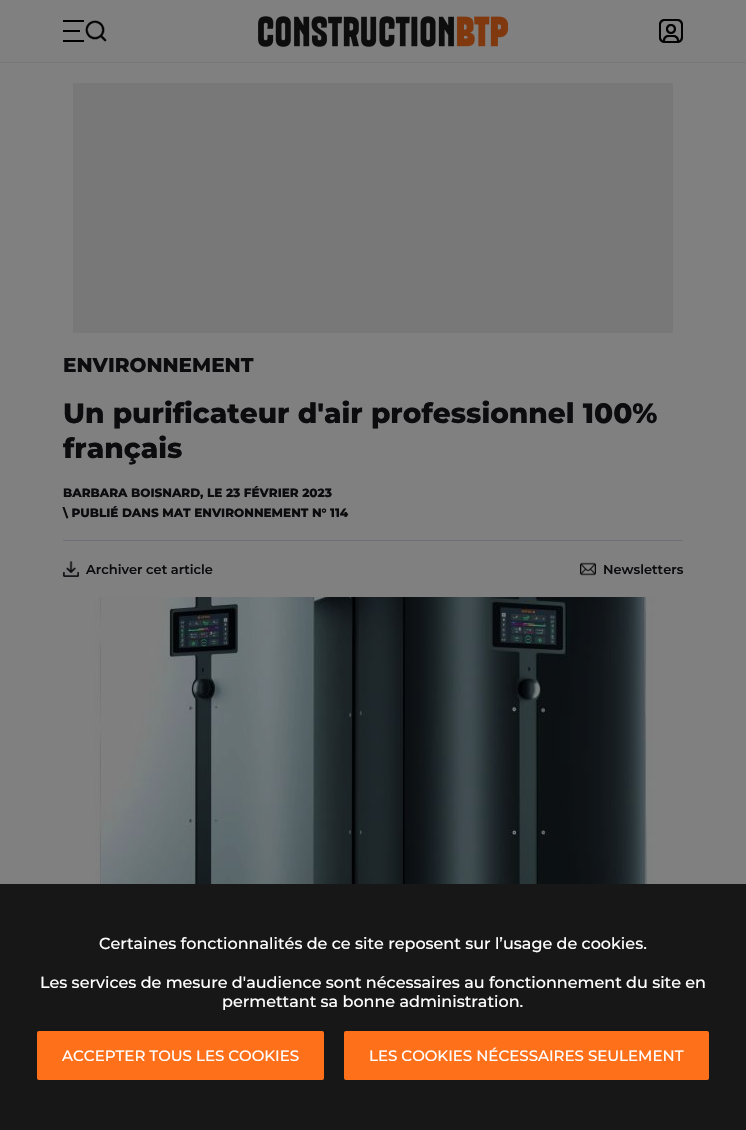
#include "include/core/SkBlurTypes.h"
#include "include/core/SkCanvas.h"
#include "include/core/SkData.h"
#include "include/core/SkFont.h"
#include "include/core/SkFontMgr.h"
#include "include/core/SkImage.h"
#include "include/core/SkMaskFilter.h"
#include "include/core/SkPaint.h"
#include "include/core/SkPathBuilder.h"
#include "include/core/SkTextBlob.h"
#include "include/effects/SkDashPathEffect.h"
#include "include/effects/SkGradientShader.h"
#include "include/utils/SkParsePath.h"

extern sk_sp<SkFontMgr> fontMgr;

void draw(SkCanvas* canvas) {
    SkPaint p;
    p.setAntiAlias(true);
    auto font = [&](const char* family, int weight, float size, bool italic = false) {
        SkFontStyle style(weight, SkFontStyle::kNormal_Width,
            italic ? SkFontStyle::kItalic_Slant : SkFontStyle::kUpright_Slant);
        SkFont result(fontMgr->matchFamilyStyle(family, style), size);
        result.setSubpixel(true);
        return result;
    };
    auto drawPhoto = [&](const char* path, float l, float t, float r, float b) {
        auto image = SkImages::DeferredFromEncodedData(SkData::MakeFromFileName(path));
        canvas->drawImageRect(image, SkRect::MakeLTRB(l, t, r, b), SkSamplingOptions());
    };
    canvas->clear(0xFF808080);
    p.setColor(0xFF787878);
    canvas->drawRect(SkRect::MakeLTRB(0, 62, 746, 63), p);
    drawPhoto("media/1.png", 63, 20, 107, 42);
    drawPhoto("media/2.png", 258, 16, 508, 47);
    drawPhoto("media/3.png", 659, 19, 683, 43);
    canvas->drawRect(SkRect::MakeLTRB(73, 83, 673, 333), p);
    auto font1 = font("Montserrat", 800, 20);
    p.setColor(0xFF0C0C0F);
    canvas->drawString("ENVIRONNEMENT", 63, 372, font1, p);
    auto font2 = font("Montserrat", 800, 28);
    canvas->drawString("Un purificateur d'air professionnel 100%", 63, 423, font2, p);
    canvas->drawString("français", 63, 458, font2, p);
    auto font3 = font("Montserrat", 800, 12);
    canvas->drawString("BARBARA BOISNARD, LE 23 FÉVRIER 2023", 63, 497, font3, p);
    canvas->drawString("\\ PUBLIÉ DANS MAT ENVIRONNEMENT N° 114", 63, 517, font3, p);
    p.setColor(0xFF6D6F75);
    canvas->drawRect(SkRect::MakeLTRB(63, 540, 683, 541), p);
    drawPhoto("media/4.png", 63, 561, 79, 577);
    auto font4 = font("Montserrat", 600, 13);
    p.setColor(0xFF0C0C0F);
    canvas->drawString("Archiver cet article", 86, 574, font4, p);
    drawPhoto("media/5.png", 580, 562, 596, 576);
    canvas->drawString("Newsletters", 603, 574, font4, p);
    drawPhoto("media/6.png", 95, 597, 655, 884);
    p.setColor(0xFF171717);
    canvas->drawRect(SkRect::MakeLTRB(0, 884, 746, 1130), p);
    auto font5 = font("Montserrat", 500, 16);
    p.setColor(0xFFFFFFFF);
    {
        const struct { const char* s; float x, y; } items[] = {
            {"Certaines fonctionnalités de ce site reposent sur l’usage de cookies.", 99, 949},
            {"Les services de mesure d'audience sont nécessaires au fonctionnement du site en", 40, 988},
            {"permettant sa bonne administration.", 222, 1007},
        };
        for (auto [s, x, y] : items) {
            canvas->drawString(s, x, y, font5, p);
        }
    }
    p.setColor(0xFFFF701B);
    canvas->drawRoundRect(SkRect::MakeLTRB(37, 1031, 324, 1080), 2, 2, p);
    auto font6 = font("Montserrat", 500, 15);
    p.setColor(0xFFFFFFFF);
    canvas->drawString("ACCEPTER TOUS LES COOKIES", 62, 1061, font6, p);
    p.setColor(0xFFFF701B);
    canvas->drawRoundRect(SkRect::MakeLTRB(344, 1031, 709, 1080), 2, 2, p);
    p.setColor(0xFFFFFFFF);
    canvas->drawString("LES COOKIES NÉCESSAIRES SEULEMENT", 369, 1061, font6, p);
}
